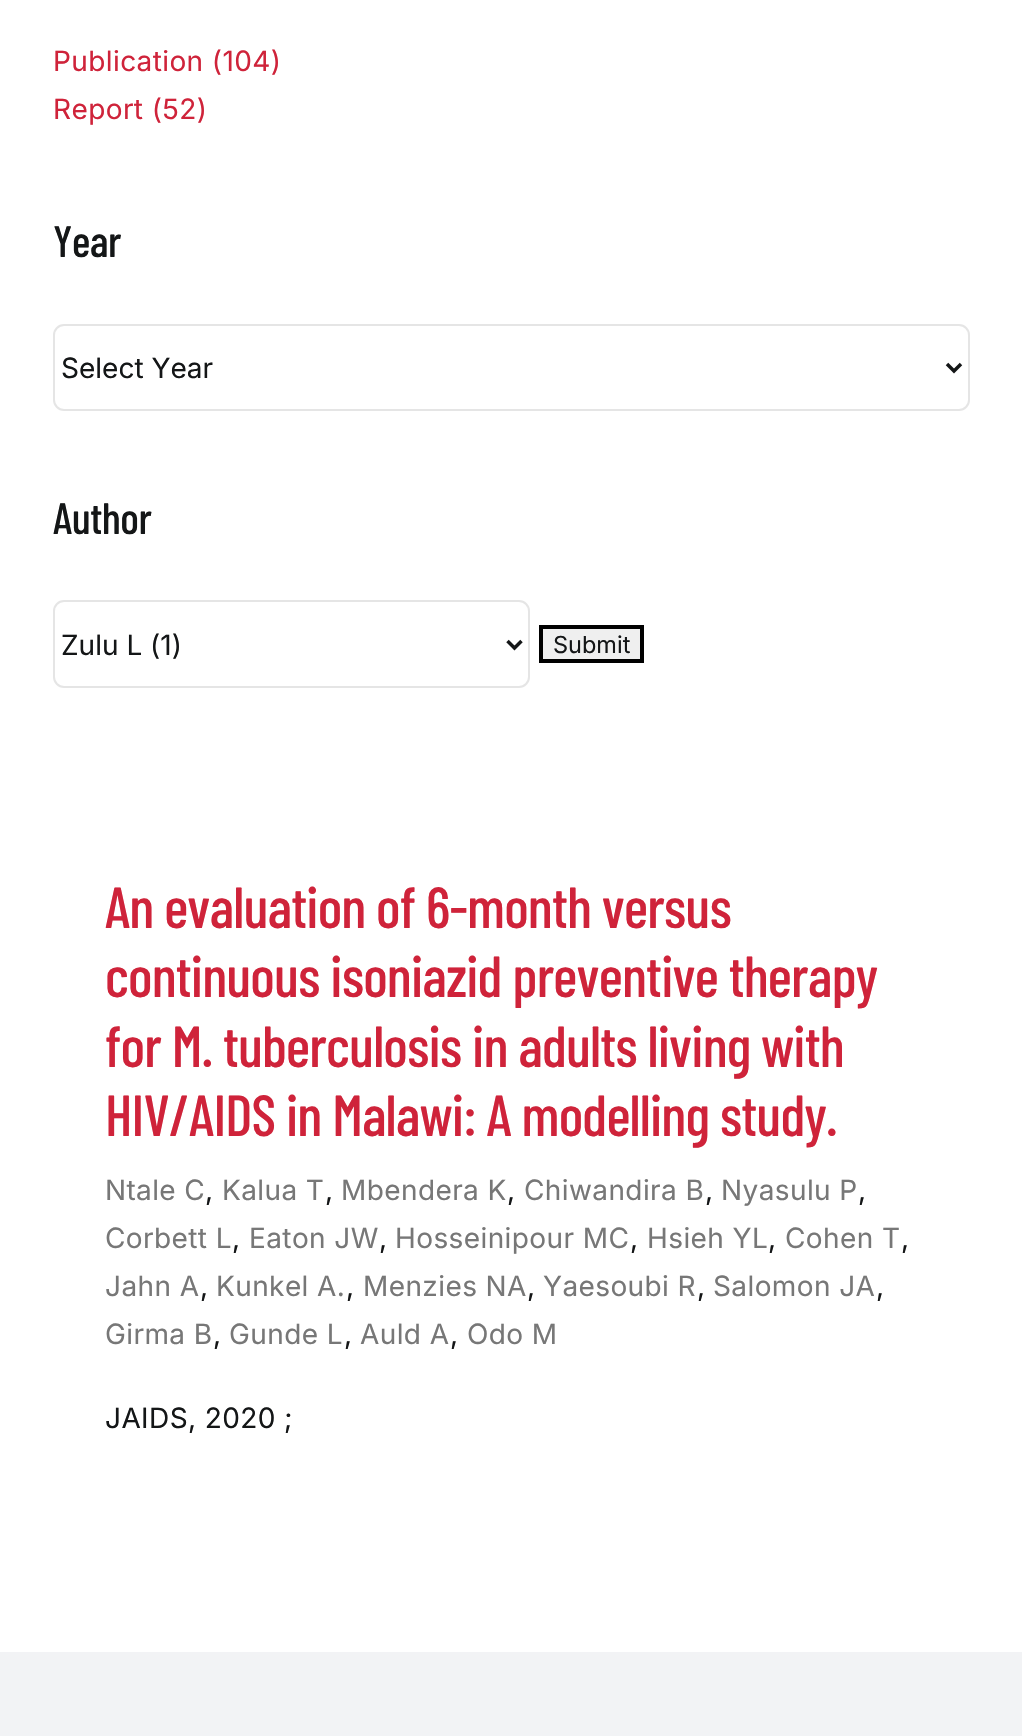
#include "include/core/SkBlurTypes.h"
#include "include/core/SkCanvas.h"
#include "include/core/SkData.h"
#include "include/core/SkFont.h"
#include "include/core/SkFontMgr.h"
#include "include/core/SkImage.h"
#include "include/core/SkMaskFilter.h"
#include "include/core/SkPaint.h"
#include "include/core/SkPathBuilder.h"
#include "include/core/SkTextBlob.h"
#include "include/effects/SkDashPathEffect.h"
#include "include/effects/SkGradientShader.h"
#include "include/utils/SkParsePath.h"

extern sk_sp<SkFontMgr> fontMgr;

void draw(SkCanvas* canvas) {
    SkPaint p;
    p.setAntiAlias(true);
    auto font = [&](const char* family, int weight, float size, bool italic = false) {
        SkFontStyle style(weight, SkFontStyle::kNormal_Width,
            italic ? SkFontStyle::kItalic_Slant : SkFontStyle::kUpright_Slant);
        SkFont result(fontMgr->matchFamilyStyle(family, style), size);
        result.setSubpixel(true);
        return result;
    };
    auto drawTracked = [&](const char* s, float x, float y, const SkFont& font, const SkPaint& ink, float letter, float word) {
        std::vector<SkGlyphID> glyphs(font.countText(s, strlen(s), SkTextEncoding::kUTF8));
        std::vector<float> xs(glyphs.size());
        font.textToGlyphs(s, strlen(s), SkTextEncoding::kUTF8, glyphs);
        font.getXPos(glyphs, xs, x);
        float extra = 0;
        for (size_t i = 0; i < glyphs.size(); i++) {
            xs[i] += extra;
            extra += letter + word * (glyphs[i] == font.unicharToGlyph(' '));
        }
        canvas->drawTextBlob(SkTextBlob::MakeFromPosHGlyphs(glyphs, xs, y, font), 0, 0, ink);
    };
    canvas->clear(0xFFFFFFFF);
    auto font1 = font("Inter", 400, 28);
    p.setColor(0xFFCF233A);
    drawTracked("Publication (104)", 53, 71, font1, p, 0.4f, 0);
    drawTracked("Report (52)", 53, 119, font1, p, 0.4f, 0);
    auto font2 = font("Barlow Condensed", 500, 44);
    p.setColor(0xFF141617);
    drawTracked("Year", 53, 257, font2, p, -0.5f, 0);
    p.setStyle(SkPaint::kStroke_Style);
    p.setStrokeWidth(2);
    p.setColor(0xFFE5E5E5);
    canvas->drawRoundRect(SkRect::MakeLTRB(54, 325, 969, 410), 10, 10, p);
    p.setStrokeWidth(3.5f);
    p.setColor(0xFF141617);
    canvas->drawPath(SkPathBuilder().moveTo(947, 364).lineTo(954, 371).lineTo(961, 364).detach(), p);
    p.setStyle(SkPaint::kFill_Style);
    canvas->drawString("Select Year", 61, 378, font1, p);
    drawTracked("Author", 53, 534, font2, p, -0.5f, 0);
    p.setStyle(SkPaint::kStroke_Style);
    p.setStrokeWidth(2);
    p.setColor(0xFFE5E5E5);
    canvas->drawRoundRect(SkRect::MakeLTRB(54, 601, 529, 687), 10, 10, p);
    p.setStrokeWidth(3.5f);
    p.setColor(0xFF141617);
    canvas->drawPath(SkPathBuilder().moveTo(507.5f, 641).lineTo(514.5f, 648).lineTo(521.5f, 641).detach(), p);
    p.setStyle(SkPaint::kFill_Style);
    canvas->drawString("Zulu L (1)", 61, 655, font1, p);
    p.setColor(0xFFEFEFEF);
    canvas->drawRect(SkRect::MakeLTRB(541, 627, 642, 661), p);
    p.setStyle(SkPaint::kStroke_Style);
    p.setStrokeWidth(4);
    p.setColor(0xFF000000);
    canvas->drawRect(SkRect::MakeLTRB(541, 627, 642, 661), p);
    auto font3 = font("Inter", 400, 23.5f);
    p.setStyle(SkPaint::kFill_Style);
    p.setColor(0xFF141617);
    canvas->drawString("Submit", 553, 653, font3, p);
    auto font4 = font("Barlow Condensed", 500, 57.75f);
    p.setColor(0xFFCF233A);
    {
        const struct { const char* s; float x, y; } items[] = {
            {"An evaluation of 6-month versus", 105, 928},
            {"continuous isoniazid preventive therapy", 105, 997},
            {"for M. tuberculosis in adults living with", 105, 1067},
            {"HIV/AIDS in Malawi: A modelling study.", 105, 1136},
        };
        for (auto [s, x, y] : items) {
            drawTracked(s, x, y, font4, p, -0.85f, 0);
        }
    }
    p.setColor(0xFF777777);
    drawTracked("Ntale C", 105, 1200, font1, p, 0.4f, 0);
    p.setColor(0xFF141617);
    drawTracked(",", 205, 1200, font1, p, 0.4f, 0);
    p.setColor(0xFF777777);
    drawTracked("Kalua T", 222, 1200, font1, p, 0.4f, 0);
    p.setColor(0xFF141617);
    drawTracked(",", 325, 1200, font1, p, 0.4f, 0);
    p.setColor(0xFF777777);
    drawTracked("Mbendera K", 341, 1200, font1, p, 0.4f, 0);
    p.setColor(0xFF141617);
    drawTracked(",", 507, 1200, font1, p, 0.4f, 0);
    p.setColor(0xFF777777);
    drawTracked("Chiwandira B", 524, 1200, font1, p, 0.4f, 0);
    p.setColor(0xFF141617);
    drawTracked(",", 705, 1200, font1, p, 0.4f, 0);
    p.setColor(0xFF777777);
    drawTracked("Nyasulu P", 721, 1200, font1, p, 0.4f, 0);
    p.setColor(0xFF141617);
    drawTracked(",", 858, 1200, font1, p, 0.4f, 0);
    p.setColor(0xFF777777);
    drawTracked("Corbett L", 105, 1248, font1, p, 0.4f, 0);
    p.setColor(0xFF141617);
    drawTracked(",", 232, 1248, font1, p, 0.4f, 0);
    p.setColor(0xFF777777);
    drawTracked("Eaton JW", 249, 1248, font1, p, 0.4f, 0);
    p.setColor(0xFF141617);
    drawTracked(",", 379, 1248, font1, p, 0.4f, 0);
    p.setColor(0xFF777777);
    drawTracked("Hosseinipour MC", 395, 1248, font1, p, 0.4f, 0);
    p.setColor(0xFF141617);
    drawTracked(",", 630, 1248, font1, p, 0.4f, 0);
    p.setColor(0xFF777777);
    drawTracked("Hsieh YL", 647, 1248, font1, p, 0.4f, 0);
    p.setColor(0xFF141617);
    drawTracked(",", 768, 1248, font1, p, 0.4f, 0);
    p.setColor(0xFF777777);
    drawTracked("Cohen T", 785, 1248, font1, p, 0.4f, 0);
    p.setColor(0xFF141617);
    drawTracked(",", 901, 1248, font1, p, 0.4f, 0);
    p.setColor(0xFF777777);
    drawTracked("Jahn A", 105, 1296, font1, p, 0.4f, 0);
    p.setColor(0xFF141617);
    drawTracked(",", 200, 1296, font1, p, 0.4f, 0);
    p.setColor(0xFF777777);
    drawTracked("Kunkel A.", 216, 1296, font1, p, 0.4f, 0);
    p.setColor(0xFF141617);
    drawTracked(",", 346, 1296, font1, p, 0.4f, 0);
    p.setColor(0xFF777777);
    drawTracked("Menzies NA", 363, 1296, font1, p, 0.4f, 0);
    p.setColor(0xFF141617);
    drawTracked(",", 527, 1296, font1, p, 0.4f, 0);
    p.setColor(0xFF777777);
    drawTracked("Yaesoubi R", 543, 1296, font1, p, 0.4f, 0);
    p.setColor(0xFF141617);
    drawTracked(",", 697, 1296, font1, p, 0.4f, 0);
    p.setColor(0xFF777777);
    drawTracked("Salomon JA", 713, 1296, font1, p, 0.4f, 0);
    p.setColor(0xFF141617);
    drawTracked(",", 876, 1296, font1, p, 0.4f, 0);
    p.setColor(0xFF777777);
    drawTracked("Girma B", 105, 1344, font1, p, 0.4f, 0);
    p.setColor(0xFF141617);
    drawTracked(",", 213, 1344, font1, p, 0.4f, 0);
    p.setColor(0xFF777777);
    drawTracked("Gunde L", 229, 1344, font1, p, 0.4f, 0);
    p.setColor(0xFF141617);
    drawTracked(",", 344, 1344, font1, p, 0.4f, 0);
    p.setColor(0xFF777777);
    drawTracked("Auld A", 360, 1344, font1, p, 0.4f, 0);
    p.setColor(0xFF141617);
    drawTracked(",", 450, 1344, font1, p, 0.4f, 0);
    p.setColor(0xFF777777);
    drawTracked("Odo M", 467, 1344, font1, p, 0.4f, 0);
    p.setColor(0xFF141617);
    drawTracked("JAIDS, 2020 ;", 105, 1428, font1, p, 0.4f, 0);
    p.setColor(0xFFF2F3F5);
    canvas->drawRect(SkRect::MakeLTRB(0, 1652, 1022, 1736), p);
}
